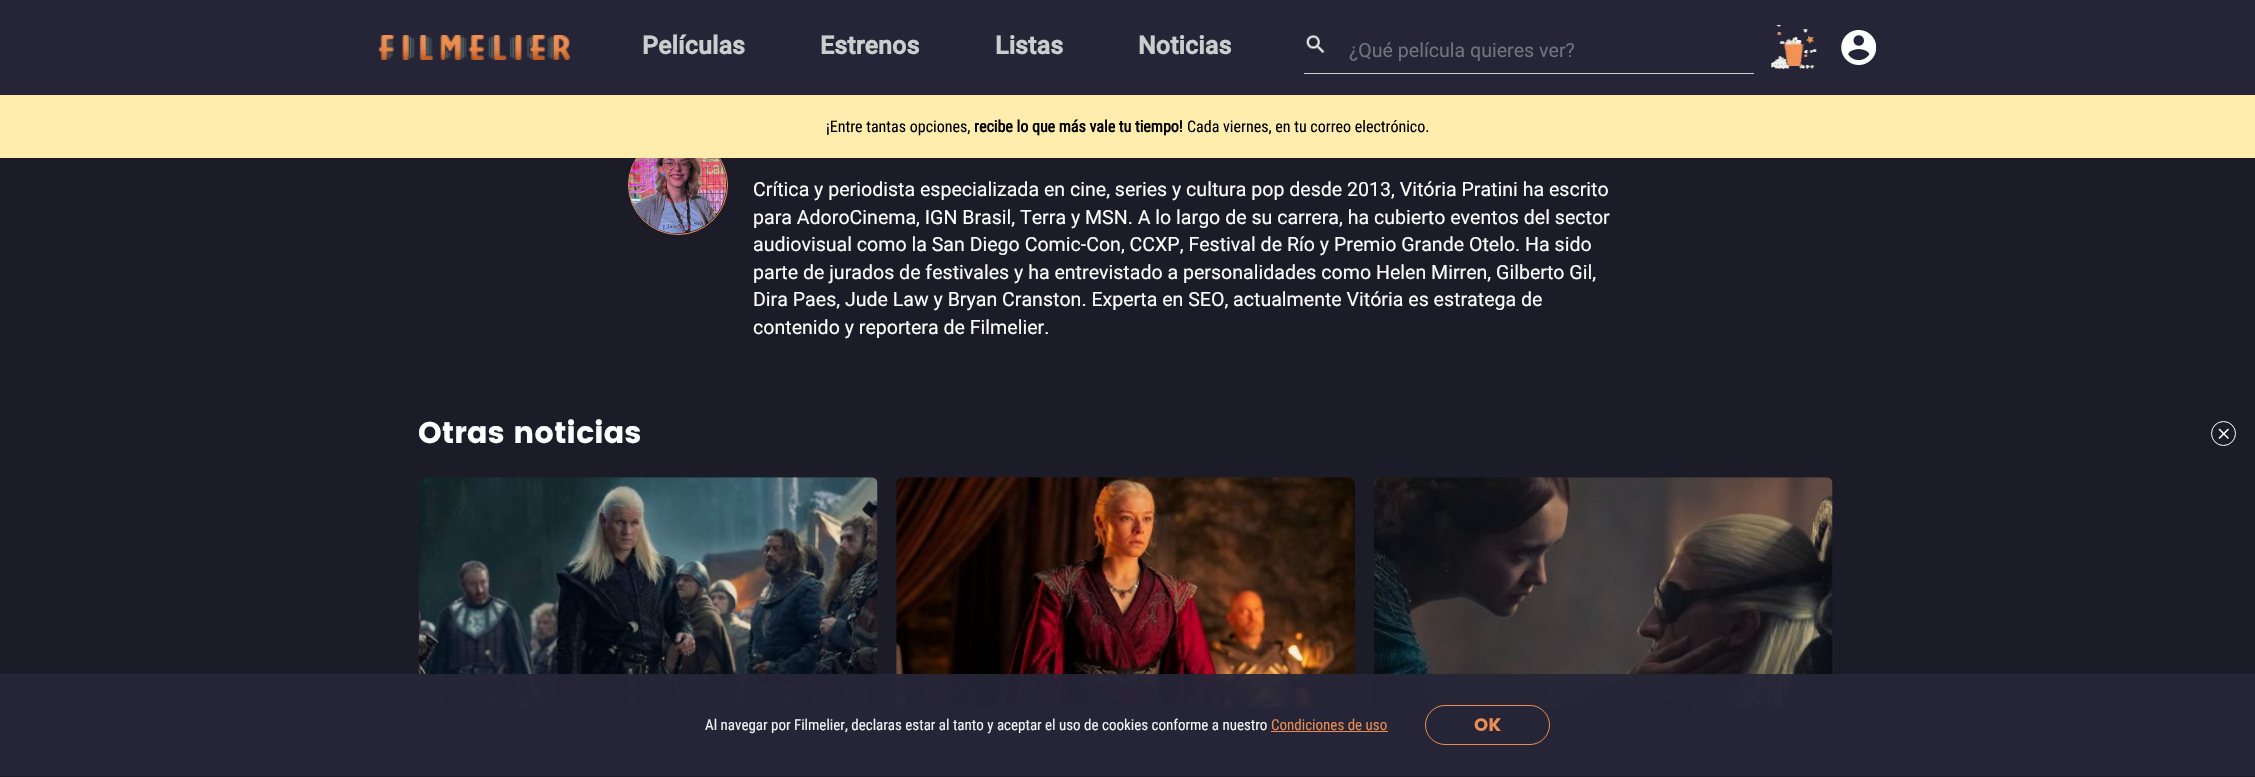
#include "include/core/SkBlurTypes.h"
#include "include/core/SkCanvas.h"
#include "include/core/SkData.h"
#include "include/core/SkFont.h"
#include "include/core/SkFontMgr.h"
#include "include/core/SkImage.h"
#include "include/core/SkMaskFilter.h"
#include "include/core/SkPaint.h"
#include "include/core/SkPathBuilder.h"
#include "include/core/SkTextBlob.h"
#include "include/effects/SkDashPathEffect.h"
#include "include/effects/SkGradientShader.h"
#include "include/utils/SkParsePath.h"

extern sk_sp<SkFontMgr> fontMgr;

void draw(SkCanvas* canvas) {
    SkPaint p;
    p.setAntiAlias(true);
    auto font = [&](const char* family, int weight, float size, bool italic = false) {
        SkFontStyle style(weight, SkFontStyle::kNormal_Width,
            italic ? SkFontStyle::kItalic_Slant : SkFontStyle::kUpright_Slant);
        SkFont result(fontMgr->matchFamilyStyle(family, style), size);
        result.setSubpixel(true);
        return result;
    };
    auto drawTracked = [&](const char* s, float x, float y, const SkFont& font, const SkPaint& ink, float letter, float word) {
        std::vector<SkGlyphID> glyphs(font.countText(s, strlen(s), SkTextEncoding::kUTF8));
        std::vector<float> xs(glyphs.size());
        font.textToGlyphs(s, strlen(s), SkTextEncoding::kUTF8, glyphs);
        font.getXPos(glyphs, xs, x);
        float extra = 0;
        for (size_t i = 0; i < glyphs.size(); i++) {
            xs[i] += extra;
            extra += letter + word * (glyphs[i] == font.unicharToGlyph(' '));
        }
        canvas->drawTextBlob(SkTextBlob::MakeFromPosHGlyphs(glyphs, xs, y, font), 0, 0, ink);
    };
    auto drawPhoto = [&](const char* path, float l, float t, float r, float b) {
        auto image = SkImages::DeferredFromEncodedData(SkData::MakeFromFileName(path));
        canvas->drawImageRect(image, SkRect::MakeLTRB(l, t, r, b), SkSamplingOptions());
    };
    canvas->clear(0xFF1C1C28);
    p.setColor(0xFF252537);
    canvas->drawRect(SkRect::MakeLTRB(0, 0, 2255, 95), p);
    drawPhoto("media/1.png", 378, 35, 570, 60);
    auto font1 = font("Roboto", 700, 25);
    p.setColor(0xFFCDCDCD);
    {
        const struct { const char* s; float x, y; } items[] = {
            {"Películas", 642, 54},
            {"Estrenos", 820, 54},
            {"Listas", 995, 54},
            {"Noticias", 1138, 54},
        };
        for (auto [s, x, y] : items) {
            drawTracked(s, x, y, font1, p, 0.1f, 0);
        }
    }
    drawPhoto("media/2.png", 1306, 35, 1325, 54);
    canvas->drawRect(SkRect::MakeLTRB(1304, 73, 1754, 74), p);
    auto font2 = font("Roboto", 400, 20);
    p.setColor(0xFF6C757D);
    canvas->drawString("¿Qué película quieres ver?", 1349, 57, font2, p);
    drawPhoto("media/3.png", 1771, 25, 1817, 69);
    drawPhoto("media/4.png", 1841, 30, 1876, 65);
    p.setStyle(SkPaint::kStroke_Style);
    p.setStrokeWidth(1);
    p.setColor(0xFFF39256);
    canvas->drawCircle(678, 185, 49.5f, p);
    p.setStyle(SkPaint::kFill_Style);
    p.setColor(0xFFFFEDAE);
    canvas->drawRect(SkRect::MakeLTRB(0, 95, 2255, 158), p);
    auto font3 = font("Roboto Condensed", 400, 16);
    p.setColor(0xFF000000);
    canvas->drawString("¡Entre tantas opciones,", 826, 132, font3, p);
    auto font4 = font("Roboto Condensed", 700, 16);
    canvas->drawString("recibe lo que más vale tu tiempo!", 974, 132, font4, p);
    canvas->drawString("Cada viernes, en tu correo electrónico.", 1187, 132, font3, p);
    drawPhoto("media/5.png", 628, 158, 727, 234);
    p.setColor(0xFFFFFFFF);
    {
        const struct { const char* s; float x, y; } items[] = {
            {"Crítica y periodista especializada en cine, series y cultura pop desde 2013, Vitória Pratini ha escrito", 753, 196},
            {"para AdoroCinema, IGN Brasil, Terra y MSN. A lo largo de su carrera, ha cubierto eventos del sector", 753, 224},
            {"audiovisual como la San Diego Comic-Con, CCXP, Festival de Río y Premio Grande Otelo. Ha sido", 753, 251},
            {"parte de jurados de festivales y ha entrevistado a personalidades como Helen Mirren, Gilberto Gil,", 753, 279},
            {"Dira Paes, Jude Law y Bryan Cranston. Experta en SEO, actualmente Vitória es estratega de", 753, 306},
            {"contenido y reportera de Filmelier.", 753, 334},
        };
        for (auto [s, x, y] : items) {
            canvas->drawString(s, x, y, font2, p);
        }
    }
    auto font5 = font("Poppins", 700, 30);
    canvas->drawString("Otras noticias", 418, 443, font5, p);
    drawPhoto("media/6.png", 418, 477, 878, 708);
    drawPhoto("media/7.png", 896, 477, 1355, 708);
    drawPhoto("media/8.png", 1374, 477, 1833, 708);
    p.setStyle(SkPaint::kStroke_Style);
    canvas->drawCircle(2223.5f, 433.5f, 12, p);
    drawPhoto("media/9.png", 2218, 428, 2229, 439);
    p.setStyle(SkPaint::kFill_Style);
    p.setColor(0xF2252537);
    canvas->drawRect(SkRect::MakeLTRB(0, 674, 2255, 776), p);
    auto font6 = font("Roboto Condensed", 400, 15);
    p.setColor(0xFFF4F4F5);
    canvas->drawString("Al navegar por Filmelier, declaras estar al tanto y aceptar el uso de cookies conforme a nuestro", 705, 730, font6, p);
    p.setColor(0xFFE98D54);
    canvas->drawString("Condiciones de uso", 1271, 730, font6, p);
    p.setColor(0xF2F39256);
    canvas->drawRect(SkRect::MakeLTRB(1271, 731, 1388, 732), p);
    p.setStyle(SkPaint::kStroke_Style);
    canvas->drawRoundRect(SkRect::MakeLTRB(1425.5f, 705.5f, 1549.5f, 744.5f), 19.5f, 19.5f, p);
    auto font7 = font("Poppins", 700, 18);
    p.setStyle(SkPaint::kFill_Style);
    p.setColor(0xFFE98D54);
    canvas->drawString("OK", 1474, 731, font7, p);
}
